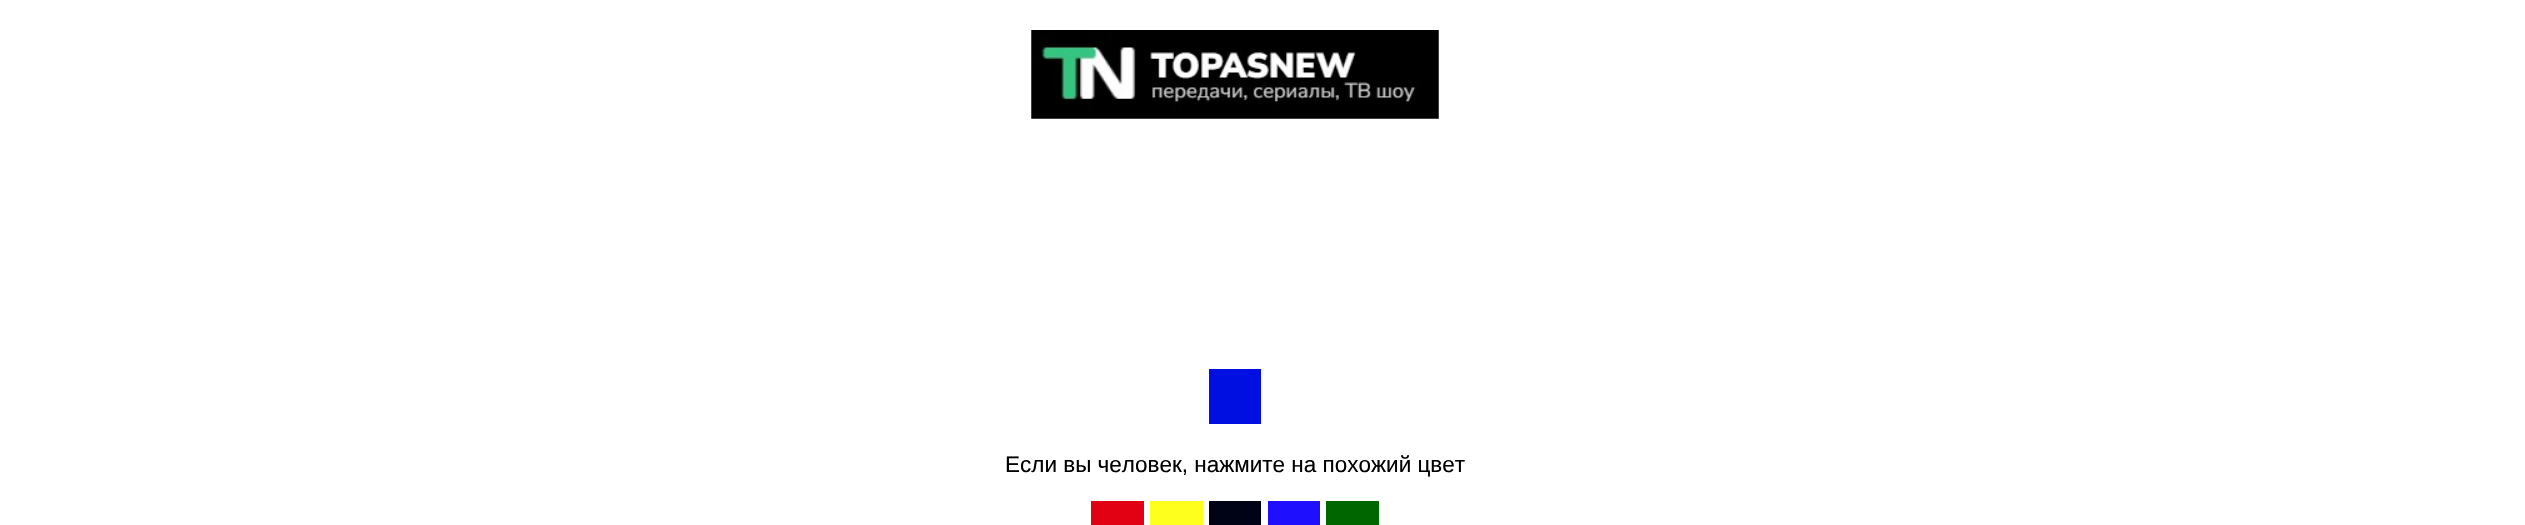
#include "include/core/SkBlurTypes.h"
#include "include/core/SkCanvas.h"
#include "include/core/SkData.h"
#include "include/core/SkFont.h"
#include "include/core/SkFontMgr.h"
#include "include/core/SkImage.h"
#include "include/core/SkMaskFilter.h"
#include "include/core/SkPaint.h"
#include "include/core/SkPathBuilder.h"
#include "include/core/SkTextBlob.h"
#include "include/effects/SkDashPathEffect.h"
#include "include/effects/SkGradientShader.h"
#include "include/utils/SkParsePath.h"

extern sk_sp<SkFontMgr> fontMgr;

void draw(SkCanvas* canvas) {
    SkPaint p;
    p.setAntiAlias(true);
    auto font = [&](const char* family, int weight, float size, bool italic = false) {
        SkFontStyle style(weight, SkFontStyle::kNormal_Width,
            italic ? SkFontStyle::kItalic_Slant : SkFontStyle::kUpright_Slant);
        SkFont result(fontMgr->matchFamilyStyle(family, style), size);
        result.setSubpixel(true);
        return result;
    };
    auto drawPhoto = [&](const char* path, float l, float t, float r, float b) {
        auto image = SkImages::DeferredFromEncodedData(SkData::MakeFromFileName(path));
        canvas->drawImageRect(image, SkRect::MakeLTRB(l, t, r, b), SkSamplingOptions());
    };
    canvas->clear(0xFFFFFFFF);
    drawPhoto("media/1.png", 1031, 30, 1439, 119);
    p.setColor(0xFF000FE1);
    canvas->drawRect(SkRect::MakeLTRB(1209, 369, 1261, 424), p);
    auto font1 = font("Liberation Sans", 400, 22.5f);
    p.setColor(0xFF000000);
    canvas->drawString("Если вы человек, нажмите на похожий цвет", 1005, 472, font1, p);
    {
        const struct { float l, t, r, b; SkColor color; } items[] = {
            {1091, 501, 1144, 525, 0xFFE20112},
            {1150, 501, 1203, 525, 0xFFFFFF1D},
            {1209, 501, 1261, 525, 0xFF000215},
            {1268, 501, 1320, 525, 0xFF1E0FFF},
            {1326, 501, 1379, 525, 0xFF006700},
        };
        for (auto [l, t, r, b, color] : items) {
            p.setColor(color);
            canvas->drawRect(SkRect::MakeLTRB(l, t, r, b), p);
        }
    }
}
